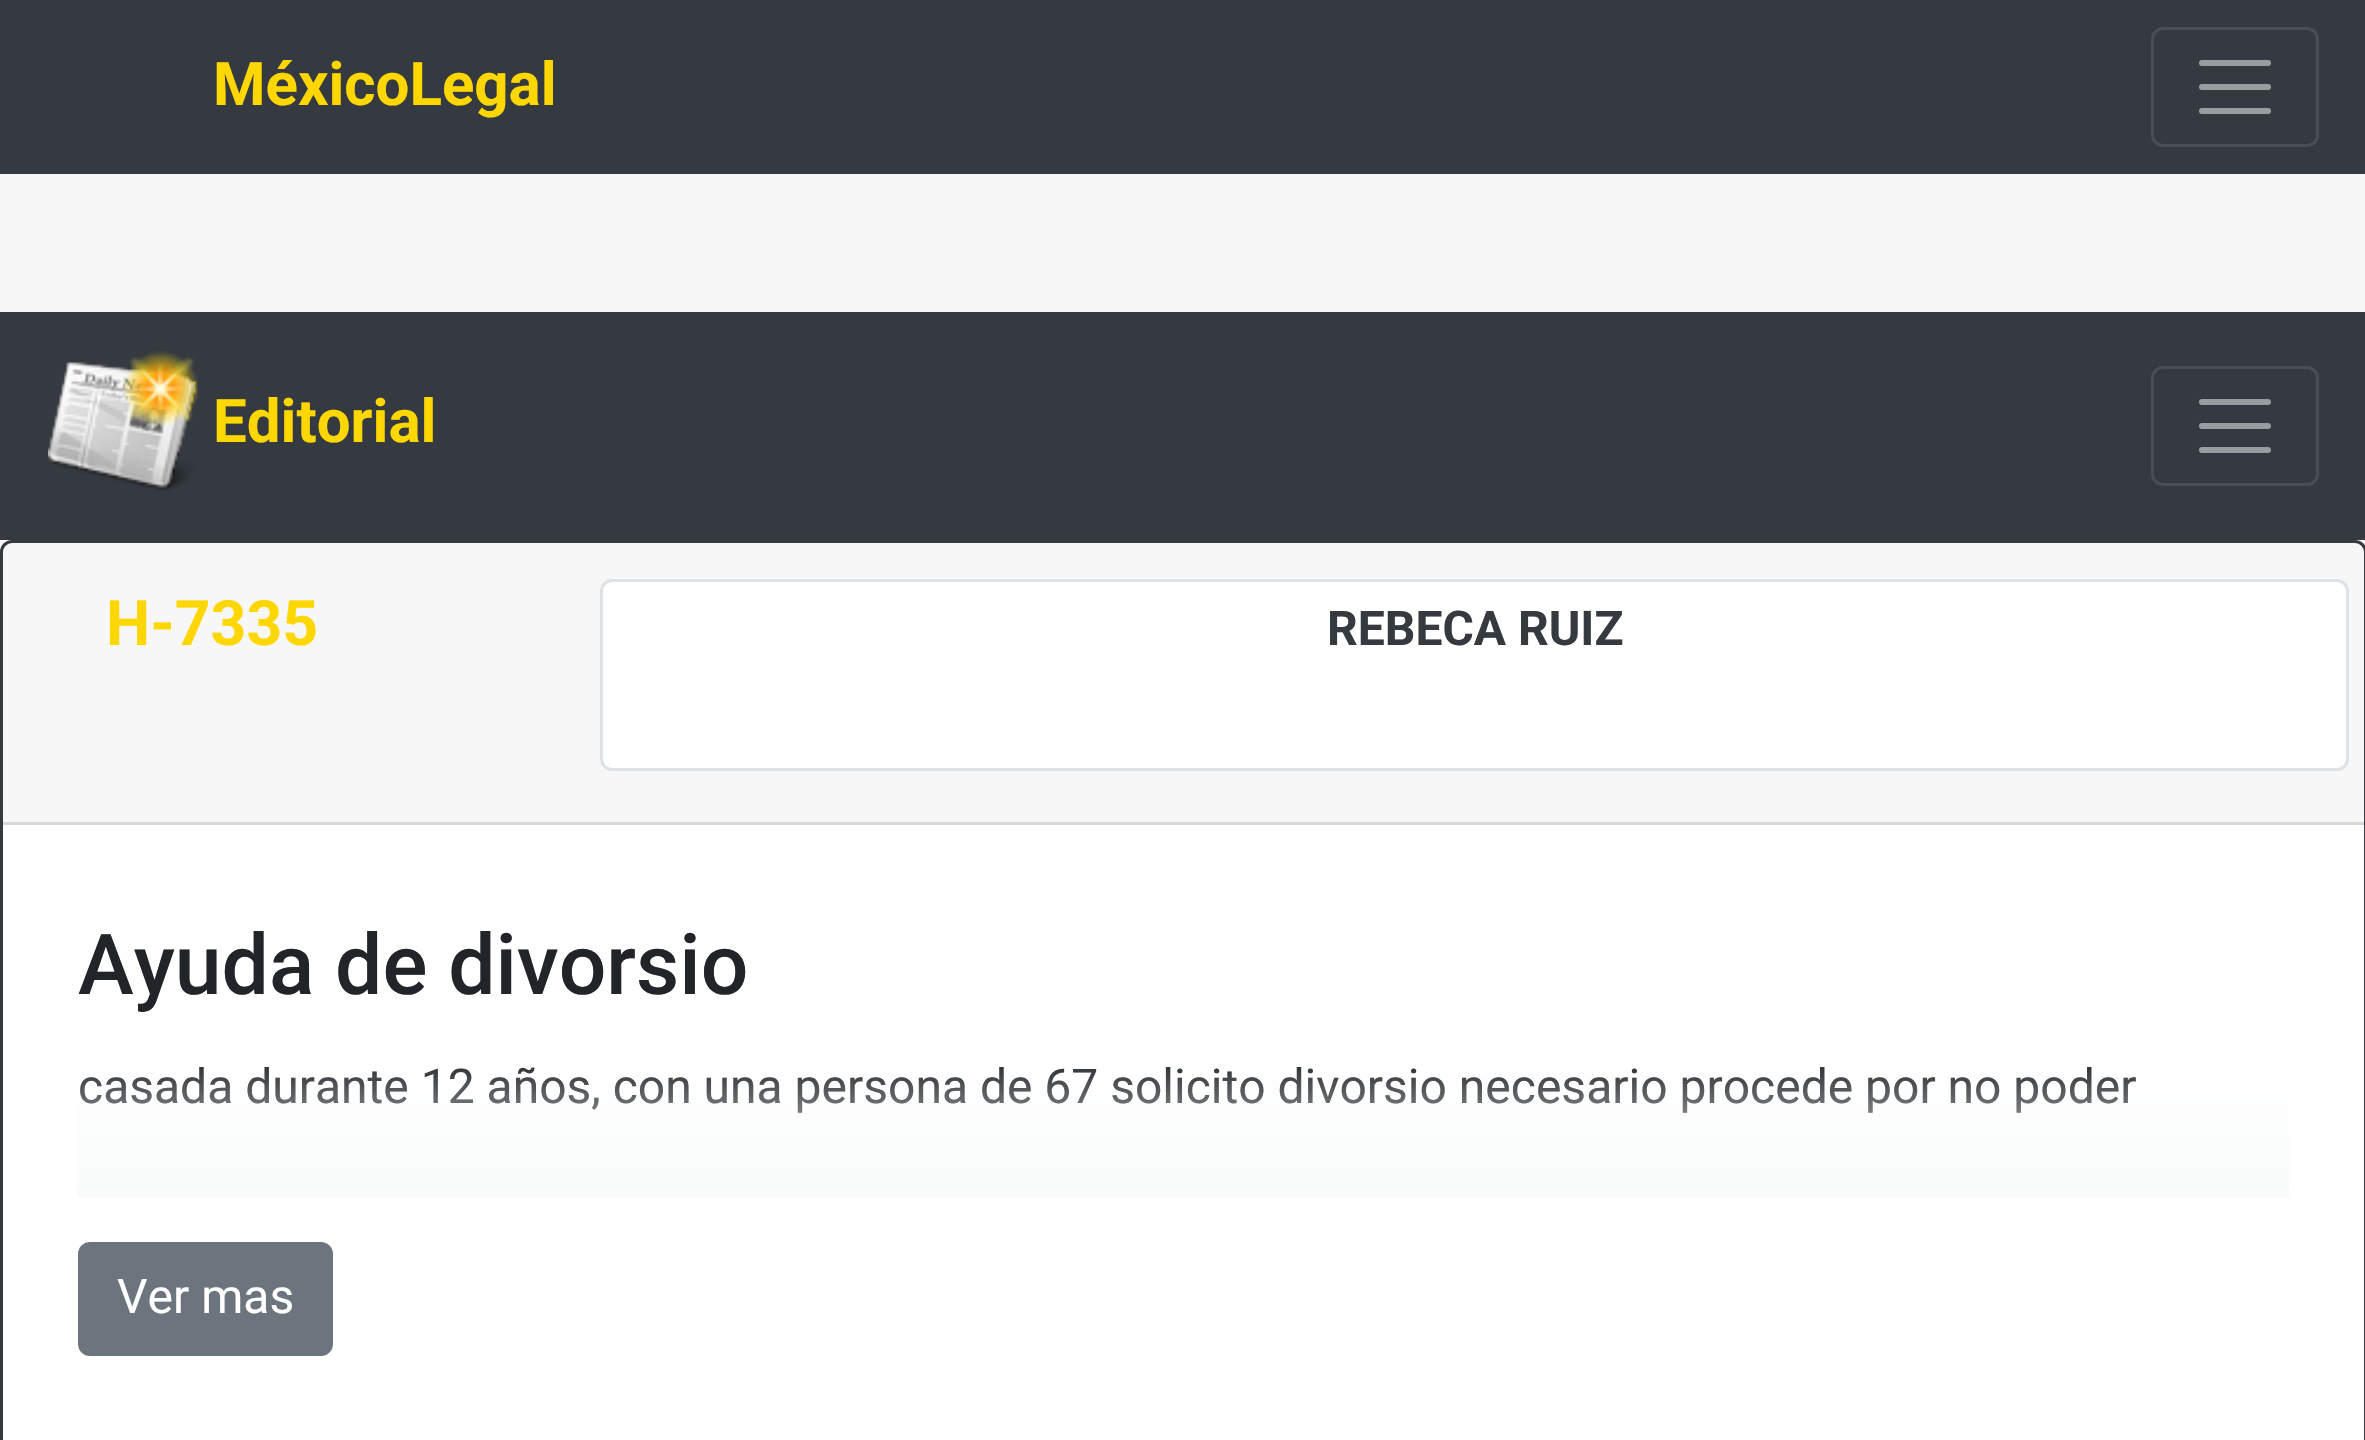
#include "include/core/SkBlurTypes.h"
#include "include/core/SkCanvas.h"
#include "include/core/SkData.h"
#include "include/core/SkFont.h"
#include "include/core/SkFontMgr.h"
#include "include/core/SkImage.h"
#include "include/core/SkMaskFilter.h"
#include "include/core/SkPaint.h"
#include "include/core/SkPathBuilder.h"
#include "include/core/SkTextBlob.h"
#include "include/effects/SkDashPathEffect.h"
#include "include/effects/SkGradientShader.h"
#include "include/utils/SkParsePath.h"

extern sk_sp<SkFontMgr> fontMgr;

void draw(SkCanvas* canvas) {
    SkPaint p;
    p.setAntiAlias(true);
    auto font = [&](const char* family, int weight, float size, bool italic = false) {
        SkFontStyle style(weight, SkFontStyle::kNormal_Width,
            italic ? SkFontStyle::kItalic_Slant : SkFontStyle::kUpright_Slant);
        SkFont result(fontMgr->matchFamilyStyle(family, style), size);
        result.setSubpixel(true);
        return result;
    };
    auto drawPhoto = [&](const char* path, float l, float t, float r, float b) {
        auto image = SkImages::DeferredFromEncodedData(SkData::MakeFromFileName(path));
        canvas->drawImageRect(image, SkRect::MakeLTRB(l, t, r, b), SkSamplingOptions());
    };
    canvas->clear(0xFFF7F7F7);
    p.setColor(0xFF343A40);
    canvas->drawRect(SkRect::MakeLTRB(0, 0, 2365, 174), p);
    auto font1 = font("Roboto", 700, 60);
    p.setColor(0xFFFFD700);
    canvas->drawString("MéxicoLegal", 213, 105, font1, p);
    p.setStyle(SkPaint::kStroke_Style);
    p.setStrokeWidth(3);
    p.setColor(0xFF484E53);
    canvas->drawRoundRect(SkRect::MakeLTRB(2152.5f, 28.5f, 2317.5f, 145.5f), 10.5f, 10.5f, p);
    p.setStrokeWidth(6);
    p.setStrokeCap(SkPaint::kRound_Cap);
    p.setColor(0xFF9A9DA0);
    canvas->drawPath(SkPathBuilder().moveTo(2202, 63).lineTo(2268, 63).moveTo(2202, 87).lineTo(2268, 87).moveTo(2202, 111).lineTo(2268, 111).detach(), p);
    p.setStyle(SkPaint::kFill_Style);
    p.setColor(0xFF343A40);
    canvas->drawRect(SkRect::MakeLTRB(0, 312, 2365, 540), p);
    drawPhoto("media/1.png", 48, 351, 198, 490);
    p.setColor(0xFFFFD700);
    canvas->drawString("Editorial", 213, 442, font1, p);
    p.setStyle(SkPaint::kStroke_Style);
    p.setStrokeWidth(3);
    p.setStrokeCap(SkPaint::kButt_Cap);
    p.setColor(0xFF484E53);
    canvas->drawRoundRect(SkRect::MakeLTRB(2152.5f, 367.5f, 2317.5f, 484.5f), 10.5f, 10.5f, p);
    p.setStrokeWidth(6);
    p.setStrokeCap(SkPaint::kRound_Cap);
    p.setColor(0xFF9A9DA0);
    canvas->drawPath(SkPathBuilder().moveTo(2202, 402).lineTo(2268, 402).moveTo(2202, 426).lineTo(2268, 426).moveTo(2202, 450).lineTo(2268, 450).detach(), p);
    p.setStyle(SkPaint::kFill_Style);
    p.setColor(0xFFFFFFFF);
    canvas->drawRoundRect(SkRect::MakeLTRB(1.5f, 541.5f, 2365.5f, 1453.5f), 10.5f, 10.5f, p);
    p.setStyle(SkPaint::kStroke_Style);
    p.setStrokeWidth(3);
    p.setStrokeCap(SkPaint::kButt_Cap);
    p.setColor(0xFF343A40);
    canvas->drawRoundRect(SkRect::MakeLTRB(1.5f, 541.5f, 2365.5f, 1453.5f), 10.5f, 10.5f, p);
    p.setStyle(SkPaint::kFill_Style);
    p.setColor(0x08000000);
    canvas->drawRect(SkRect::MakeLTRB(3, 543, 2364, 822), p);
    p.setColor(0xFFD8D8D8);
    canvas->drawRect(SkRect::MakeLTRB(3, 822, 2364, 825), p);
    auto font2 = font("Roboto", 700, 62.5f);
    p.setColor(0xFFFFD700);
    canvas->drawString("H-7335", 106, 645, font2, p);
    p.setColor(0xFFFFFFFF);
    canvas->drawRoundRect(SkRect::MakeLTRB(601.5f, 580.5f, 2347.5f, 769.5f), 10.5f, 10.5f, p);
    p.setStyle(SkPaint::kStroke_Style);
    p.setColor(0xFFDEE2E6);
    canvas->drawRoundRect(SkRect::MakeLTRB(601.5f, 580.5f, 2347.5f, 769.5f), 10.5f, 10.5f, p);
    auto font3 = font("Roboto", 700, 48);
    p.setStyle(SkPaint::kFill_Style);
    p.setColor(0xFF343A40);
    canvas->drawString("REBECA RUIZ", 1327, 645, font3, p);
    auto font4 = font("Roboto", 500, 84);
    p.setColor(0xFF212529);
    canvas->drawString("Ayuda de divorsio", 78, 994, font4, p);
    auto font5 = font("Roboto", 400, 48);
    canvas->drawString("casada durante 12 años, con una persona de 67 solicito divorsio necesario procede por no poder", 78, 1103, font5, p);
    {
        const SkColor colors[] = {0x00F9FBFB, 0xFFF9FBFB};
        const float stops[] = {0.5f, 1};
        const SkPoint ends[] = {{1184, 915}, {1184, 1197}};
        p.setShader(SkGradientShader::MakeLinear(ends, colors, stops, 2, SkTileMode::kClamp));
        p.setAlpha(255);
    }
    canvas->drawRect(SkRect::MakeLTRB(78, 1067, 2289, 1197), p);
    p.setShader(nullptr);
    p.setColor(0xFF6C757D);
    canvas->drawRoundRect(SkRect::MakeLTRB(79.5f, 1243.5f, 331.5f, 1354.5f), 10.5f, 10.5f, p);
    p.setStyle(SkPaint::kStroke_Style);
    canvas->drawRoundRect(SkRect::MakeLTRB(79.5f, 1243.5f, 331.5f, 1354.5f), 10.5f, 10.5f, p);
    p.setStyle(SkPaint::kFill_Style);
    p.setColor(0xFFFFFFFF);
    canvas->drawString("Ver mas", 117, 1313, font5, p);
}
